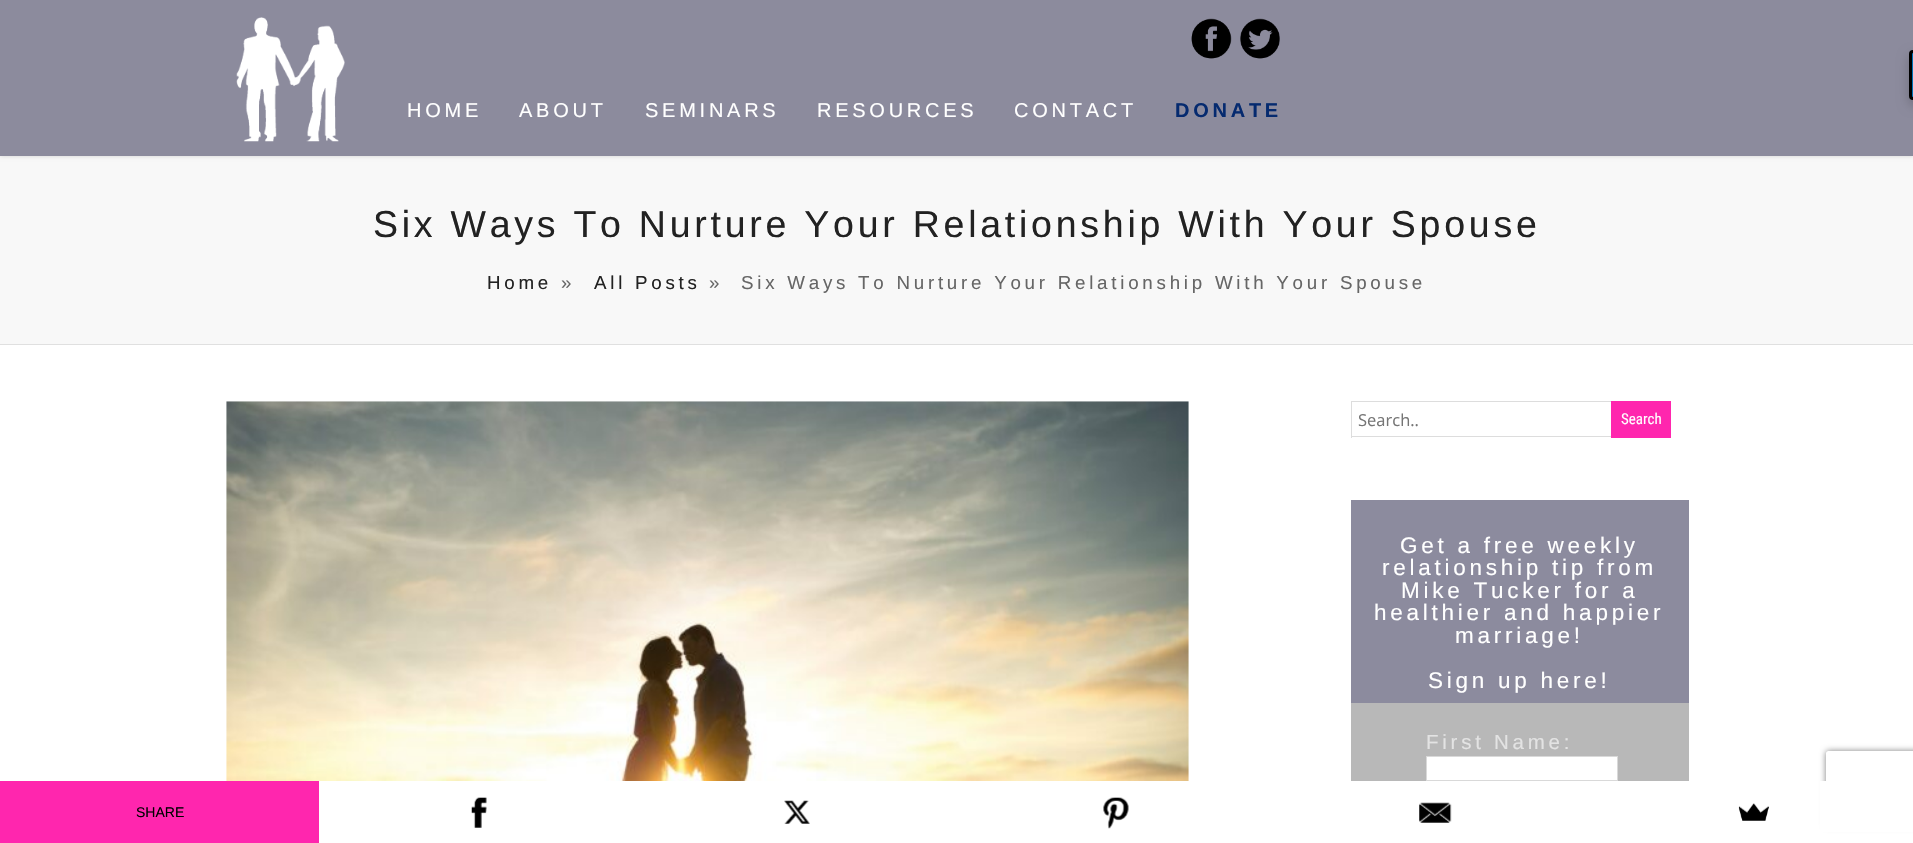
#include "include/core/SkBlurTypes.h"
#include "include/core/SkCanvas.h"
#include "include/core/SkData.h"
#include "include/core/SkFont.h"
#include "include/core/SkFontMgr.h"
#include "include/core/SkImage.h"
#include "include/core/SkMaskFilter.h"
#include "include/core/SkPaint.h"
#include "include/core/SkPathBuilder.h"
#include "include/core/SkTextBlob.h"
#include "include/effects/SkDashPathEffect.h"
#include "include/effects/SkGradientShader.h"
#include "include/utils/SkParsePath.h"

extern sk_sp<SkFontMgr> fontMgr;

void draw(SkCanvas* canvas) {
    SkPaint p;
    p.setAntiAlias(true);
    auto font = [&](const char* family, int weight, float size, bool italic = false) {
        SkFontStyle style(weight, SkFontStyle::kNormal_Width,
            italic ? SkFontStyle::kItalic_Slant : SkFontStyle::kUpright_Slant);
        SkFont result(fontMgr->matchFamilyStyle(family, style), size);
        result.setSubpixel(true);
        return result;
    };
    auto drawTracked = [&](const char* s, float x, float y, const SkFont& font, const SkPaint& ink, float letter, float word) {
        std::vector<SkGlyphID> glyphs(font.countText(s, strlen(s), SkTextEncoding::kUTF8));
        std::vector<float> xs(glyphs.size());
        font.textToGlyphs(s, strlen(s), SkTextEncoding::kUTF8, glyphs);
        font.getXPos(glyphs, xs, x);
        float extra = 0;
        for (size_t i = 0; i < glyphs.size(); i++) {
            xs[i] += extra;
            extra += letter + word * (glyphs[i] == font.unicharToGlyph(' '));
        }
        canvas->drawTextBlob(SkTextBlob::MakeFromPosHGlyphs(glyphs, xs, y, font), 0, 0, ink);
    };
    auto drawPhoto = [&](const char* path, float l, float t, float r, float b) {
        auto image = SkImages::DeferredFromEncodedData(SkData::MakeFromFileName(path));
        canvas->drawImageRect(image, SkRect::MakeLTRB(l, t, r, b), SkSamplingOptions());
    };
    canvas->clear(0xFFFFFFFF);
    p.setColor(0xFFF8F8F8);
    canvas->drawRect(SkRect::MakeLTRB(0, 156, 1913, 344), p);
    p.setColor(0x26000000);
    p.setMaskFilter(SkMaskFilter::MakeBlur(kNormal_SkBlurStyle, 2));
    canvas->drawRect(SkRect::MakeLTRB(0, 0, 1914, 156), p);
    p.setMaskFilter(nullptr);
    p.setColor(0xFF8C8B9D);
    canvas->drawRect(SkRect::MakeLTRB(0, 0, 1913, 156), p);
    p.setColor(0x33000000);
    p.setMaskFilter(SkMaskFilter::MakeBlur(kNormal_SkBlurStyle, 6));
    canvas->drawRoundRect(SkRect::MakeLTRB(1909, 55, 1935, 105), 4, 4, p);
    p.setMaskFilter(nullptr);
    p.setColor(0xFF0073B7);
    canvas->drawPath(SkPathBuilder().moveTo(1913, 51.5f).lineTo(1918.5f, 51.5f).lineTo(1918.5f, 98.5f).lineTo(1913, 98.5f).cubicTo(1911.5f, 98.5f, 1910.5f, 97.5f, 1910.5f, 96).lineTo(1910.5f, 54).cubicTo(1910.5f, 52.5f, 1911.5f, 51.5f, 1913, 51.5f).close().detach(), p);
    p.setStyle(SkPaint::kStroke_Style);
    p.setStrokeWidth(3);
    p.setColor(0xFF000000);
    canvas->drawPath(SkPathBuilder().moveTo(1913, 51.5f).lineTo(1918.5f, 51.5f).lineTo(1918.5f, 98.5f).lineTo(1913, 98.5f).cubicTo(1911.5f, 98.5f, 1910.5f, 97.5f, 1910.5f, 96).lineTo(1910.5f, 54).cubicTo(1910.5f, 52.5f, 1911.5f, 51.5f, 1913, 51.5f).close().detach(), p);
    drawPhoto("media/1.png", 236, 17, 345, 142);
    drawPhoto("media/2.png", 1191, 18, 1232, 59);
    drawPhoto("media/3.png", 1240, 18, 1280, 59);
    auto font1 = font("Liberation Sans", 400, 20);
    p.setStyle(SkPaint::kFill_Style);
    p.setColor(0xFFFFFFFF);
    {
        const struct { const char* s; float x, y; } items[] = {
            {"HOME", 407, 117},
            {"ABOUT", 519, 117},
            {"SEMINARS", 645, 117},
            {"RESOURCES", 817, 117},
            {"CONTACT", 1014, 117},
        };
        for (auto [s, x, y] : items) {
            drawTracked(s, x, y, font1, p, 3.75f, 0);
        }
    }
    auto font2 = font("Liberation Sans", 700, 20);
    p.setColor(0xFF052A6F);
    drawTracked("DONATE", 1175, 117, font2, p, 3.75f, 0);
    p.setColor(0xFFE0E0E0);
    canvas->drawRect(SkRect::MakeLTRB(0, 344, 1913, 345), p);
    auto font3 = font("Liberation Sans", 400, 37.5f);
    p.setColor(0xFF222222);
    drawTracked("Six Ways To Nurture Your Relationship With Your Spouse", 373, 237, font3, p, 3.75f, 0);
    auto font4 = font("Liberation Sans", 400, 18.75f);
    drawTracked("Home", 487, 289, font4, p, 3.75f, 0);
    p.setColor(0xFF666666);
    drawTracked("»", 561, 289, font4, p, 3.75f, 0);
    p.setColor(0xFF222222);
    drawTracked("All Posts", 594, 289, font4, p, 3.75f, 0);
    p.setColor(0xFF666666);
    drawTracked("»", 709, 289, font4, p, 3.75f, 0);
    drawTracked("Six Ways To Nurture Your Relationship With Your Spouse", 741, 289, font4, p, 3.75f, 0);
    drawPhoto("media/4.png", 226, 401, 1189, 781);
    {
        const struct { float l, t, r, b; SkColor color; } items[] = {
            {1351, 401, 1611, 402, 0xFFDDDDDD},
            {1351, 436, 1611, 437, 0xFFDDDDDD},
            {1351, 401, 1352, 438, 0xFFDDDDDD},
        };
        for (auto [l, t, r, b, color] : items) {
            p.setColor(color);
            canvas->drawRect(SkRect::MakeLTRB(l, t, r, b), p);
        }
    }
    auto font5 = font("Open Sans", 400, 16.5f);
    p.setColor(0xFF757575);
    canvas->drawString("Search..", 1358, 426, font5, p);
    p.setColor(0xFFFF26AE);
    canvas->drawRect(SkRect::MakeLTRB(1611, 401, 1671, 438), p);
    auto font6 = font("Roboto Condensed", 400, 15);
    p.setColor(0xFFFFFFFF);
    canvas->drawString("Search", 1621, 424, font6, p);
    p.setColor(0xFFB8B8B8);
    canvas->drawRect(SkRect::MakeLTRB(1351, 703, 1689, 781), p);
    p.setColor(0xFF8C8B9E);
    canvas->drawRect(SkRect::MakeLTRB(1351, 500, 1689, 703), p);
    auto font7 = font("Liberation Sans", 400, 22.5f);
    p.setColor(0xFFFFFFFF);
    {
        const struct { const char* s; float x, y; } items[] = {
            {"Get a free weekly", 1400, 553},
            {"relationship tip from", 1382, 575},
            {"Mike Tucker for a", 1401, 598},
            {"healthier and happier", 1374, 620},
            {"marriage!", 1455, 643},
            {"Sign up here!", 1428, 688},
        };
        for (auto [s, x, y] : items) {
            drawTracked(s, x, y, font7, p, 3.75f, 0);
        }
    }
    auto font8 = font("Liberation Sans", 400, 20.5f);
    p.setColor(0xFFE3E3E3);
    drawTracked("First Name:", 1426, 749, font8, p, 3.75f, 0);
    p.setColor(0xFFFFFFFF);
    canvas->drawRect(SkRect::MakeLTRB(1426.5f, 756.5f, 1617.5f, 780.5f), p);
    p.setStyle(SkPaint::kStroke_Style);
    p.setStrokeWidth(1);
    p.setColor(0xFFD9D9D9);
    canvas->drawRect(SkRect::MakeLTRB(1426.5f, 756.5f, 1617.5f, 780.5f), p);
    p.setStyle(SkPaint::kFill_Style);
    p.setColor(0xFFFF26AE);
    canvas->drawRect(SkRect::MakeLTRB(0, 781, 319, 843), p);
    auto font9 = font("Liberation Sans", 400, 14);
    p.setColor(0xFF000000);
    canvas->drawString("SHARE", 136, 817, font9, p);
    drawPhoto("media/5.png", 471, 797, 487, 828);
    drawPhoto("media/6.png", 784, 800, 810, 824);
    drawPhoto("media/7.png", 1103, 797, 1129, 829);
    drawPhoto("media/8.png", 1419, 802, 1452, 823);
    canvas->save();
    canvas->clipPath(SkPathBuilder(SkPathFillType::kEvenOdd).moveTo(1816, 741).lineTo(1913, 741).lineTo(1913, 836).lineTo(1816, 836).close().moveTo(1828.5f, 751).lineTo(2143.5f, 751).cubicTo(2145, 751, 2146, 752, 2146, 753.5f).lineTo(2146, 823.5f).cubicTo(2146, 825, 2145, 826, 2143.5f, 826).lineTo(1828.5f, 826).cubicTo(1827, 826, 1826, 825, 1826, 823.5f).lineTo(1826, 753.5f).cubicTo(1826, 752, 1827, 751, 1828.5f, 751).close().detach(), true);
    p.setColor(0xFF808080);
    p.setMaskFilter(SkMaskFilter::MakeBlur(kNormal_SkBlurStyle, 3));
    canvas->drawRoundRect(SkRect::MakeLTRB(1826, 751, 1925, 826), 2.5f, 2.5f, p);
    p.setMaskFilter(nullptr);
    canvas->restore();
    p.setColor(0xFFFFFFFF);
    canvas->drawRect(SkRect::MakeLTRB(1820, 781, 1913, 832), p);
    drawPhoto("media/9.png", 1738, 803, 1769, 821);
}
